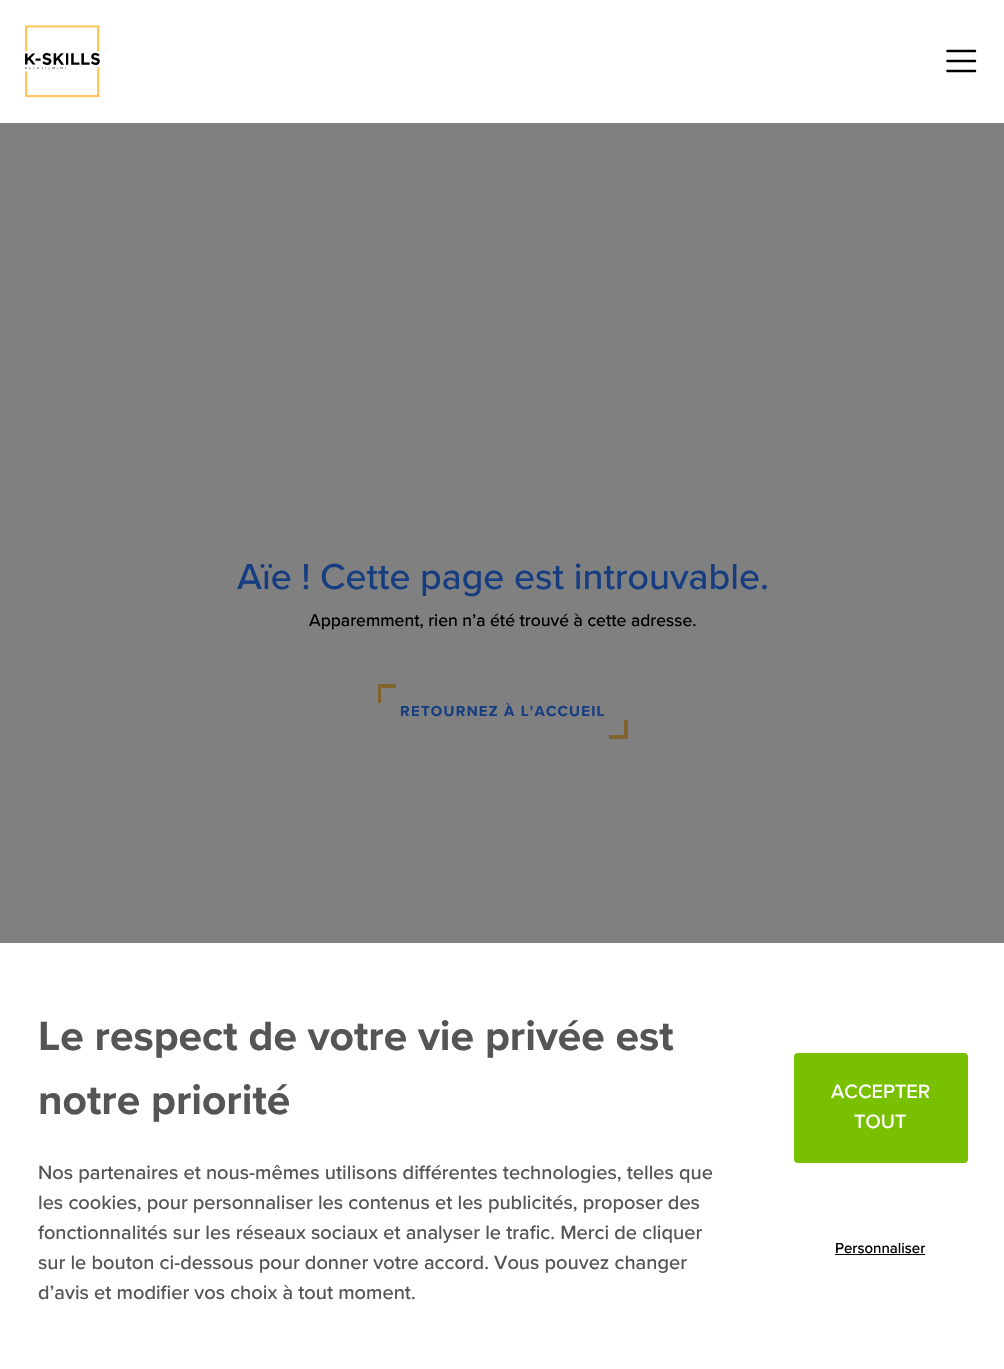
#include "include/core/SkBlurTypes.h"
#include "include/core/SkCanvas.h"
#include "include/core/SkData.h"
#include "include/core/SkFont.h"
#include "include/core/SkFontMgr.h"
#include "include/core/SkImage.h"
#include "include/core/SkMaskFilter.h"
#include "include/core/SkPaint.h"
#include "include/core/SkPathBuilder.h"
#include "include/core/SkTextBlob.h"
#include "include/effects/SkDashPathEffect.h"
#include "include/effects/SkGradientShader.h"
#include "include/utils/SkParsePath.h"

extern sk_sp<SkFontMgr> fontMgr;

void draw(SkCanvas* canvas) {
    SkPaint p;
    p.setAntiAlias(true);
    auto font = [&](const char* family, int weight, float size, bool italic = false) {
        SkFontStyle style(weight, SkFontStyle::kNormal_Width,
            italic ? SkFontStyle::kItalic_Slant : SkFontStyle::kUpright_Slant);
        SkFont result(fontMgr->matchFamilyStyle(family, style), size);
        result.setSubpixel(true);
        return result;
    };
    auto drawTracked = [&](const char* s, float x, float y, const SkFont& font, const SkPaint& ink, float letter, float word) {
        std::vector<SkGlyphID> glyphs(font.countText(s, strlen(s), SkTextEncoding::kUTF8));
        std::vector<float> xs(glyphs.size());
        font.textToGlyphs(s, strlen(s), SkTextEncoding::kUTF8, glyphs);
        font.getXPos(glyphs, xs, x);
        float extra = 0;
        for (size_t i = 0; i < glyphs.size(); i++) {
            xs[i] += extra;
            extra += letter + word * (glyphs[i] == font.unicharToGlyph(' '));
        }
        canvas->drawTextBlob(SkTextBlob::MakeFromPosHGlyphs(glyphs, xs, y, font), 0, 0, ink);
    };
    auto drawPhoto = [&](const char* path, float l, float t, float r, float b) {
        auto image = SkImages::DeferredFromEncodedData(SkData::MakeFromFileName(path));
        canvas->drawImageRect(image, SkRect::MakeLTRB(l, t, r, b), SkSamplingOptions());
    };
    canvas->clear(0xFF808080);
    p.setColor(0xFFFFFFFF);
    canvas->drawRect(SkRect::MakeLTRB(0, 0, 1004, 123), p);
    drawPhoto("media/1.png", 25, 25, 100, 98);
    p.setStyle(SkPaint::kStroke_Style);
    p.setStrokeWidth(2.5f);
    p.setStrokeCap(SkPaint::kRound_Cap);
    p.setColor(0xFF000000);
    canvas->drawPath(SkPathBuilder().moveTo(947.5f, 51).lineTo(975, 51).moveTo(947.5f, 61).lineTo(975, 61).moveTo(947.5f, 71).lineTo(975, 71).detach(), p);
    auto font1 = font("Proxima Nova", 500, 37.5f);
    p.setStyle(SkPaint::kFill_Style);
    p.setColor(0xFF153D80);
    canvas->drawString("Aïe ! Cette page est introuvable.", 237, 589, font1, p);
    auto font2 = font("Proxima Nova", 500, 17.5f);
    p.setColor(0xFF000000);
    canvas->drawString("Apparemment, rien n’a été trouvé à cette adresse.", 309, 626, font2, p);
    {
        const struct { float l, t, r, b; SkColor color; } items[] = {
            {378, 684, 396, 703, 0xFF80632F},
            {609, 720, 628, 739, 0xFF80632F},
            {381, 688, 624, 735, 0xFF808080},
        };
        for (auto [l, t, r, b, color] : items) {
            p.setColor(color);
            canvas->drawRect(SkRect::MakeLTRB(l, t, r, b), p);
        }
    }
    auto font3 = font("Proxima Nova", 700, 15);
    p.setColor(0xFF153D80);
    drawTracked("RETOURNEZ À L'ACCUEIL", 400, 716, font3, p, 1.25f, 0);
    p.setColor(0xFFFFFFFF);
    canvas->drawRect(SkRect::MakeLTRB(0, 943, 1004, 1369), p);
    auto font4 = font("Proxima Nova", 700, 42.5f);
    p.setColor(0xFF555555);
    canvas->drawString("Le respect de votre vie privée est", 38, 1050, font4, p);
    canvas->drawString("notre priorité", 38, 1114, font4, p);
    auto font5 = font("Proxima Nova", 500, 20);
    {
        const struct { const char* s; float x, y; } items[] = {
            {"Nos partenaires et nous-mêmes utilisons différentes technologies, telles que", 38, 1179},
            {"les cookies, pour personnaliser les contenus et les publicités, proposer des", 38, 1209},
            {"fonctionnalités sur les réseaux sociaux et analyser le trafic. Merci de cliquer", 38, 1239},
            {"sur le bouton ci-dessous pour donner votre accord. Vous pouvez changer", 38, 1269},
            {"d’avis et modifier vos choix à tout moment.", 38, 1299},
        };
        for (auto [s, x, y] : items) {
            canvas->drawString(s, x, y, font5, p);
        }
    }
    p.setColor(0xFF79C000);
    canvas->drawRoundRect(SkRect::MakeLTRB(794, 1053, 968, 1163), 4, 4, p);
    p.setColor(0xFFFFFFFF);
    canvas->drawString("ACCEPTER", 831, 1098, font5, p);
    canvas->drawString("TOUT", 854, 1128, font5, p);
    auto font6 = font("Proxima Nova", 500, 15);
    p.setColor(0xFF000000);
    canvas->drawString("Personnaliser", 835, 1253, font6, p);
    canvas->drawRect(SkRect::MakeLTRB(835, 1254, 925, 1255), p);
}
